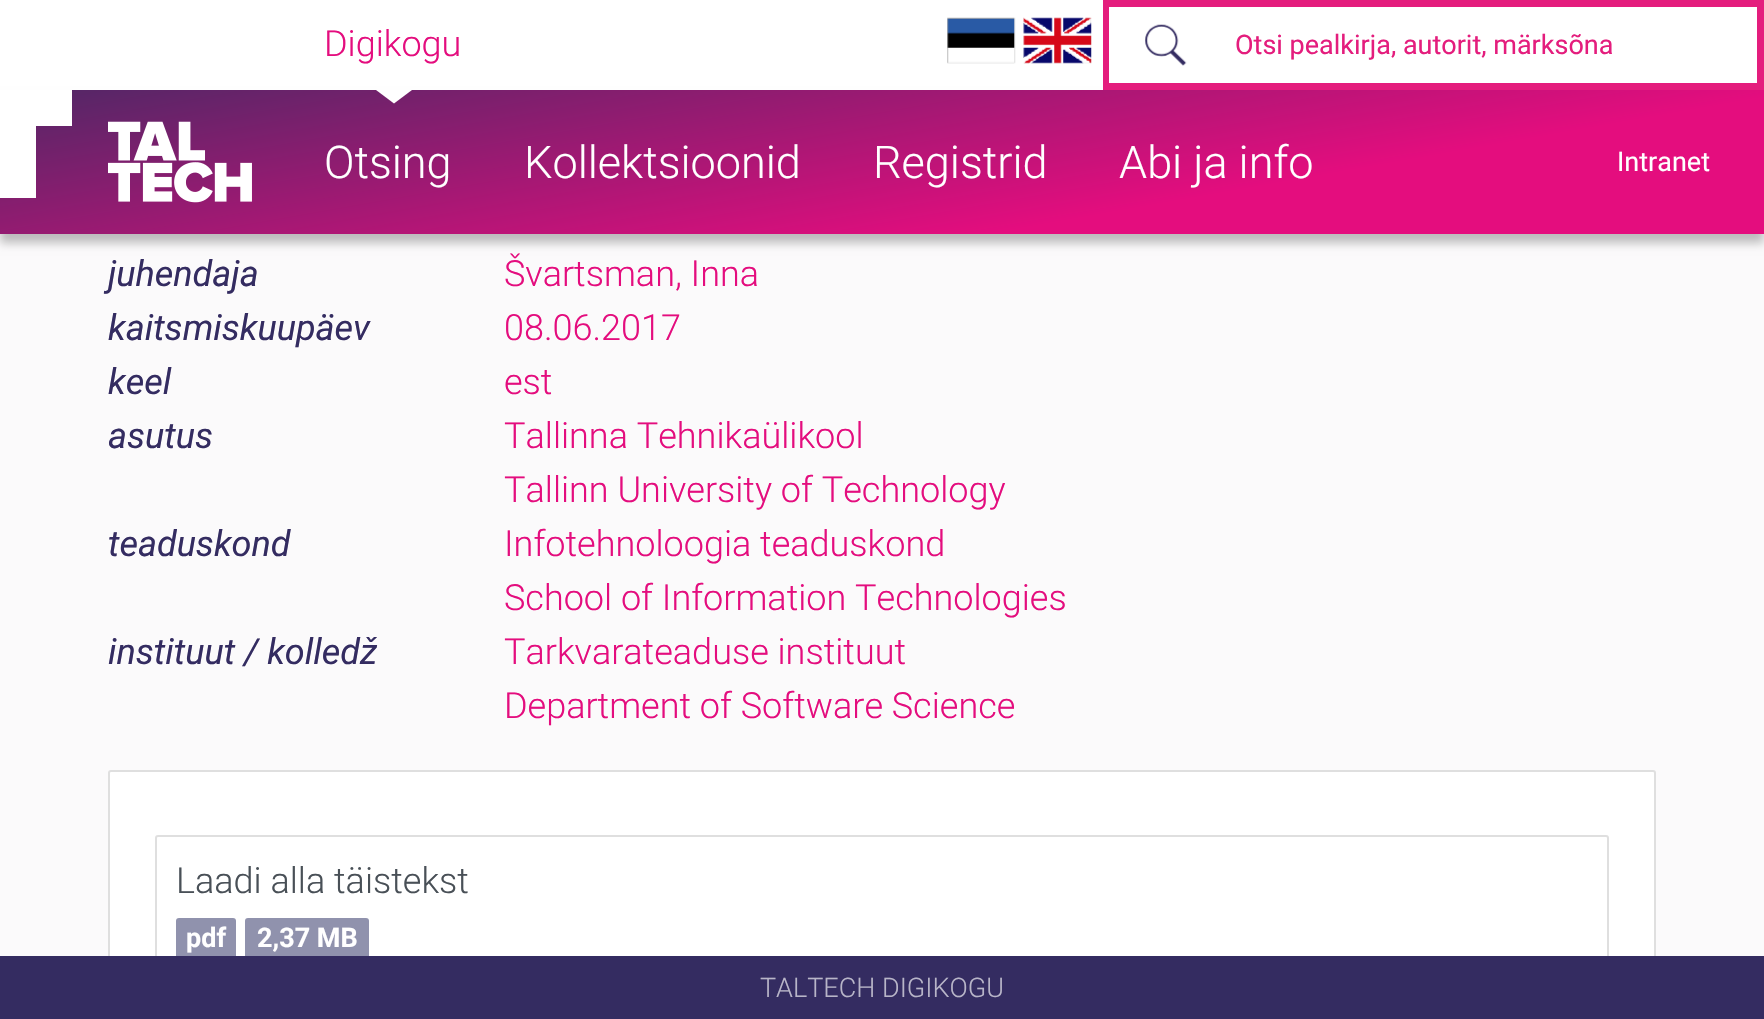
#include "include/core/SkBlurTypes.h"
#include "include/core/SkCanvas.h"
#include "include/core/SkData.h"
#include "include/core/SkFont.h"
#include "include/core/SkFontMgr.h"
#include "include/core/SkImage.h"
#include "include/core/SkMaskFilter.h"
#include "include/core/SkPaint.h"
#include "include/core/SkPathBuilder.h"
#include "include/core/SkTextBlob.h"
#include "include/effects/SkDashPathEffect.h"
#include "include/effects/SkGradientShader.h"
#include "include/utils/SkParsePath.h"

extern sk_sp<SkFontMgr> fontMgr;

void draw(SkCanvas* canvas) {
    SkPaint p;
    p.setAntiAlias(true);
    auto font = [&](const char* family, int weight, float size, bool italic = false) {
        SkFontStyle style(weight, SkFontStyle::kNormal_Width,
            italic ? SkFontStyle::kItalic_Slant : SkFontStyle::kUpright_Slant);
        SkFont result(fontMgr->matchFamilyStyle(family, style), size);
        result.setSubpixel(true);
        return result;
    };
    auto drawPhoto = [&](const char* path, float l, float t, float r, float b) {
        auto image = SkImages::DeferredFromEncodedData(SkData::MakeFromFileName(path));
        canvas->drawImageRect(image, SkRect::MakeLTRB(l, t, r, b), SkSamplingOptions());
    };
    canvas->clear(0xFFFBFAFB);
    p.setColor(0xFFFFFFFF);
    canvas->drawRect(SkRect::MakeLTRB(0, 0, 1103, 90), p);
    auto font1 = font("Roboto", 300, 36);
    p.setColor(0xFFE40D7E);
    canvas->drawString("Digikogu", 324, 56, font1, p);
    p.setColor(0x40000000);
    p.setMaskFilter(SkMaskFilter::MakeBlur(kNormal_SkBlurStyle, 4.5f));
    canvas->drawRect(SkRect::MakeLTRB(0, 99, 1764, 243), p);
    p.setMaskFilter(nullptr);
    {
        const SkColor colors[] = {0xFF512766, 0xFFE40D7E};
        const float stops[] = {0, 0.7f};
        const SkPoint ends[] = {{843, -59}, {921, 383}};
        p.setShader(SkGradientShader::MakeLinear(ends, colors, stops, 2, SkTileMode::kClamp));
        p.setAlpha(255);
    }
    canvas->drawRect(SkRect::MakeLTRB(0, 90, 1764, 234), p);
    p.setShader(nullptr);
    p.setColor(0xFFFFFFFF);
    canvas->drawPath(SkPathBuilder().moveTo(376, 90).lineTo(412, 90).lineTo(394, 103.5f).close().detach(), p);
    drawPhoto("media/1.png", 947, 17, 1016, 64);
    drawPhoto("media/2.png", 1023, 17, 1092, 64);
    p.setColor(0xFFE41D7D);
    canvas->drawRect(SkRect::MakeLTRB(1103, 0, 1764, 90), p);
    p.setColor(0xFFFFFFFF);
    canvas->drawRect(SkRect::MakeLTRB(1109, 7, 1757, 83), p);
    drawPhoto("media/3.png", 1145, 24, 1187, 66);
    auto font2 = font("Roboto", 400, 27);
    p.setColor(0xFFE41D7D);
    canvas->drawString("Otsi pealkirja, autorit, märksõna", 1235, 54, font2, p);
    p.setColor(0xFFFFFFFF);
    canvas->drawRect(SkRect::MakeLTRB(0, 90, 72, 126), p);
    canvas->drawRect(SkRect::MakeLTRB(0, 126, 36, 198), p);
    drawPhoto("media/4.png", 108, 121, 252, 203);
    auto font3 = font("Roboto", 300, 45);
    {
        const struct { const char* s; float x, y; } items[] = {
            {"Otsing", 324, 178},
            {"Kollektsioonid", 524, 178},
            {"Registrid", 873, 178},
            {"Abi ja info", 1119, 178},
        };
        for (auto [s, x, y] : items) {
            canvas->drawString(s, x, y, font3, p);
        }
    }
    canvas->drawString("Intranet", 1617, 171, font2, p);
    auto font4 = font("Roboto", 400, 36, true);
    p.setColor(0xFF342C61);
    canvas->drawString("juhendaja", 108, 286, font4, p);
    p.setColor(0xFFE40D7E);
    canvas->drawString("Švartsman, Inna", 504, 286, font1, p);
    p.setColor(0xFF342C61);
    canvas->drawString("kaitsmiskuupäev", 108, 340, font4, p);
    p.setColor(0xFFE40D7E);
    canvas->drawString("08.06.2017", 504, 340, font1, p);
    p.setColor(0xFF342C61);
    canvas->drawString("keel", 108, 394, font4, p);
    p.setColor(0xFFE40D7E);
    canvas->drawString("est", 504, 394, font1, p);
    p.setColor(0xFF342C61);
    canvas->drawString("asutus", 108, 448, font4, p);
    p.setColor(0xFFE40D7E);
    canvas->drawString("Tallinna Tehnikaülikool", 504, 448, font1, p);
    canvas->drawString("Tallinn University of Technology", 504, 502, font1, p);
    p.setColor(0xFF342C61);
    canvas->drawString("teaduskond", 108, 556, font4, p);
    p.setColor(0xFFE40D7E);
    canvas->drawString("Infotehnoloogia teaduskond", 504, 556, font1, p);
    canvas->drawString("School of Information Technologies", 504, 610, font1, p);
    p.setColor(0xFF342C61);
    canvas->drawString("instituut / kolledž", 108, 664, font4, p);
    p.setColor(0xFFE40D7E);
    canvas->drawString("Tarkvarateaduse instituut", 504, 664, font1, p);
    canvas->drawString("Department of Software Science", 504, 718, font1, p);
    p.setColor(0xFFFFFFFF);
    canvas->drawRoundRect(SkRect::MakeLTRB(109, 771, 1655, 1012), 2, 2, p);
    p.setStyle(SkPaint::kStroke_Style);
    p.setStrokeWidth(2);
    p.setColor(0xFFDFDFDF);
    canvas->drawRoundRect(SkRect::MakeLTRB(109, 771, 1655, 1012), 2, 2, p);
    canvas->drawRoundRect(SkRect::MakeLTRB(156, 836, 1608, 982), 2, 2, p);
    p.setStyle(SkPaint::kFill_Style);
    p.setColor(0xFF495057);
    canvas->drawString("Laadi alla täistekst", 176, 893, font1, p);
    p.setColor(0xFF9092AD);
    canvas->drawRoundRect(SkRect::MakeLTRB(176, 918, 236, 959), 3, 3, p);
    auto font5 = font("Roboto", 700, 27);
    p.setColor(0xFFFFFFFF);
    canvas->drawString("pdf", 186, 947, font5, p);
    p.setColor(0xFF9092AD);
    canvas->drawRoundRect(SkRect::MakeLTRB(245, 918, 369, 959), 3, 3, p);
    p.setColor(0xFFFFFFFF);
    canvas->drawString("2,37 MB", 257, 947, font5, p);
    p.setColor(0xFF342C61);
    canvas->drawRect(SkRect::MakeLTRB(0, 956, 1764, 1019), p);
    auto font6 = font("Roboto", 300, 27);
    p.setColor(0xFFB8B5C8);
    canvas->drawString("TALTECH DIGIKOGU", 760, 997, font6, p);
}
